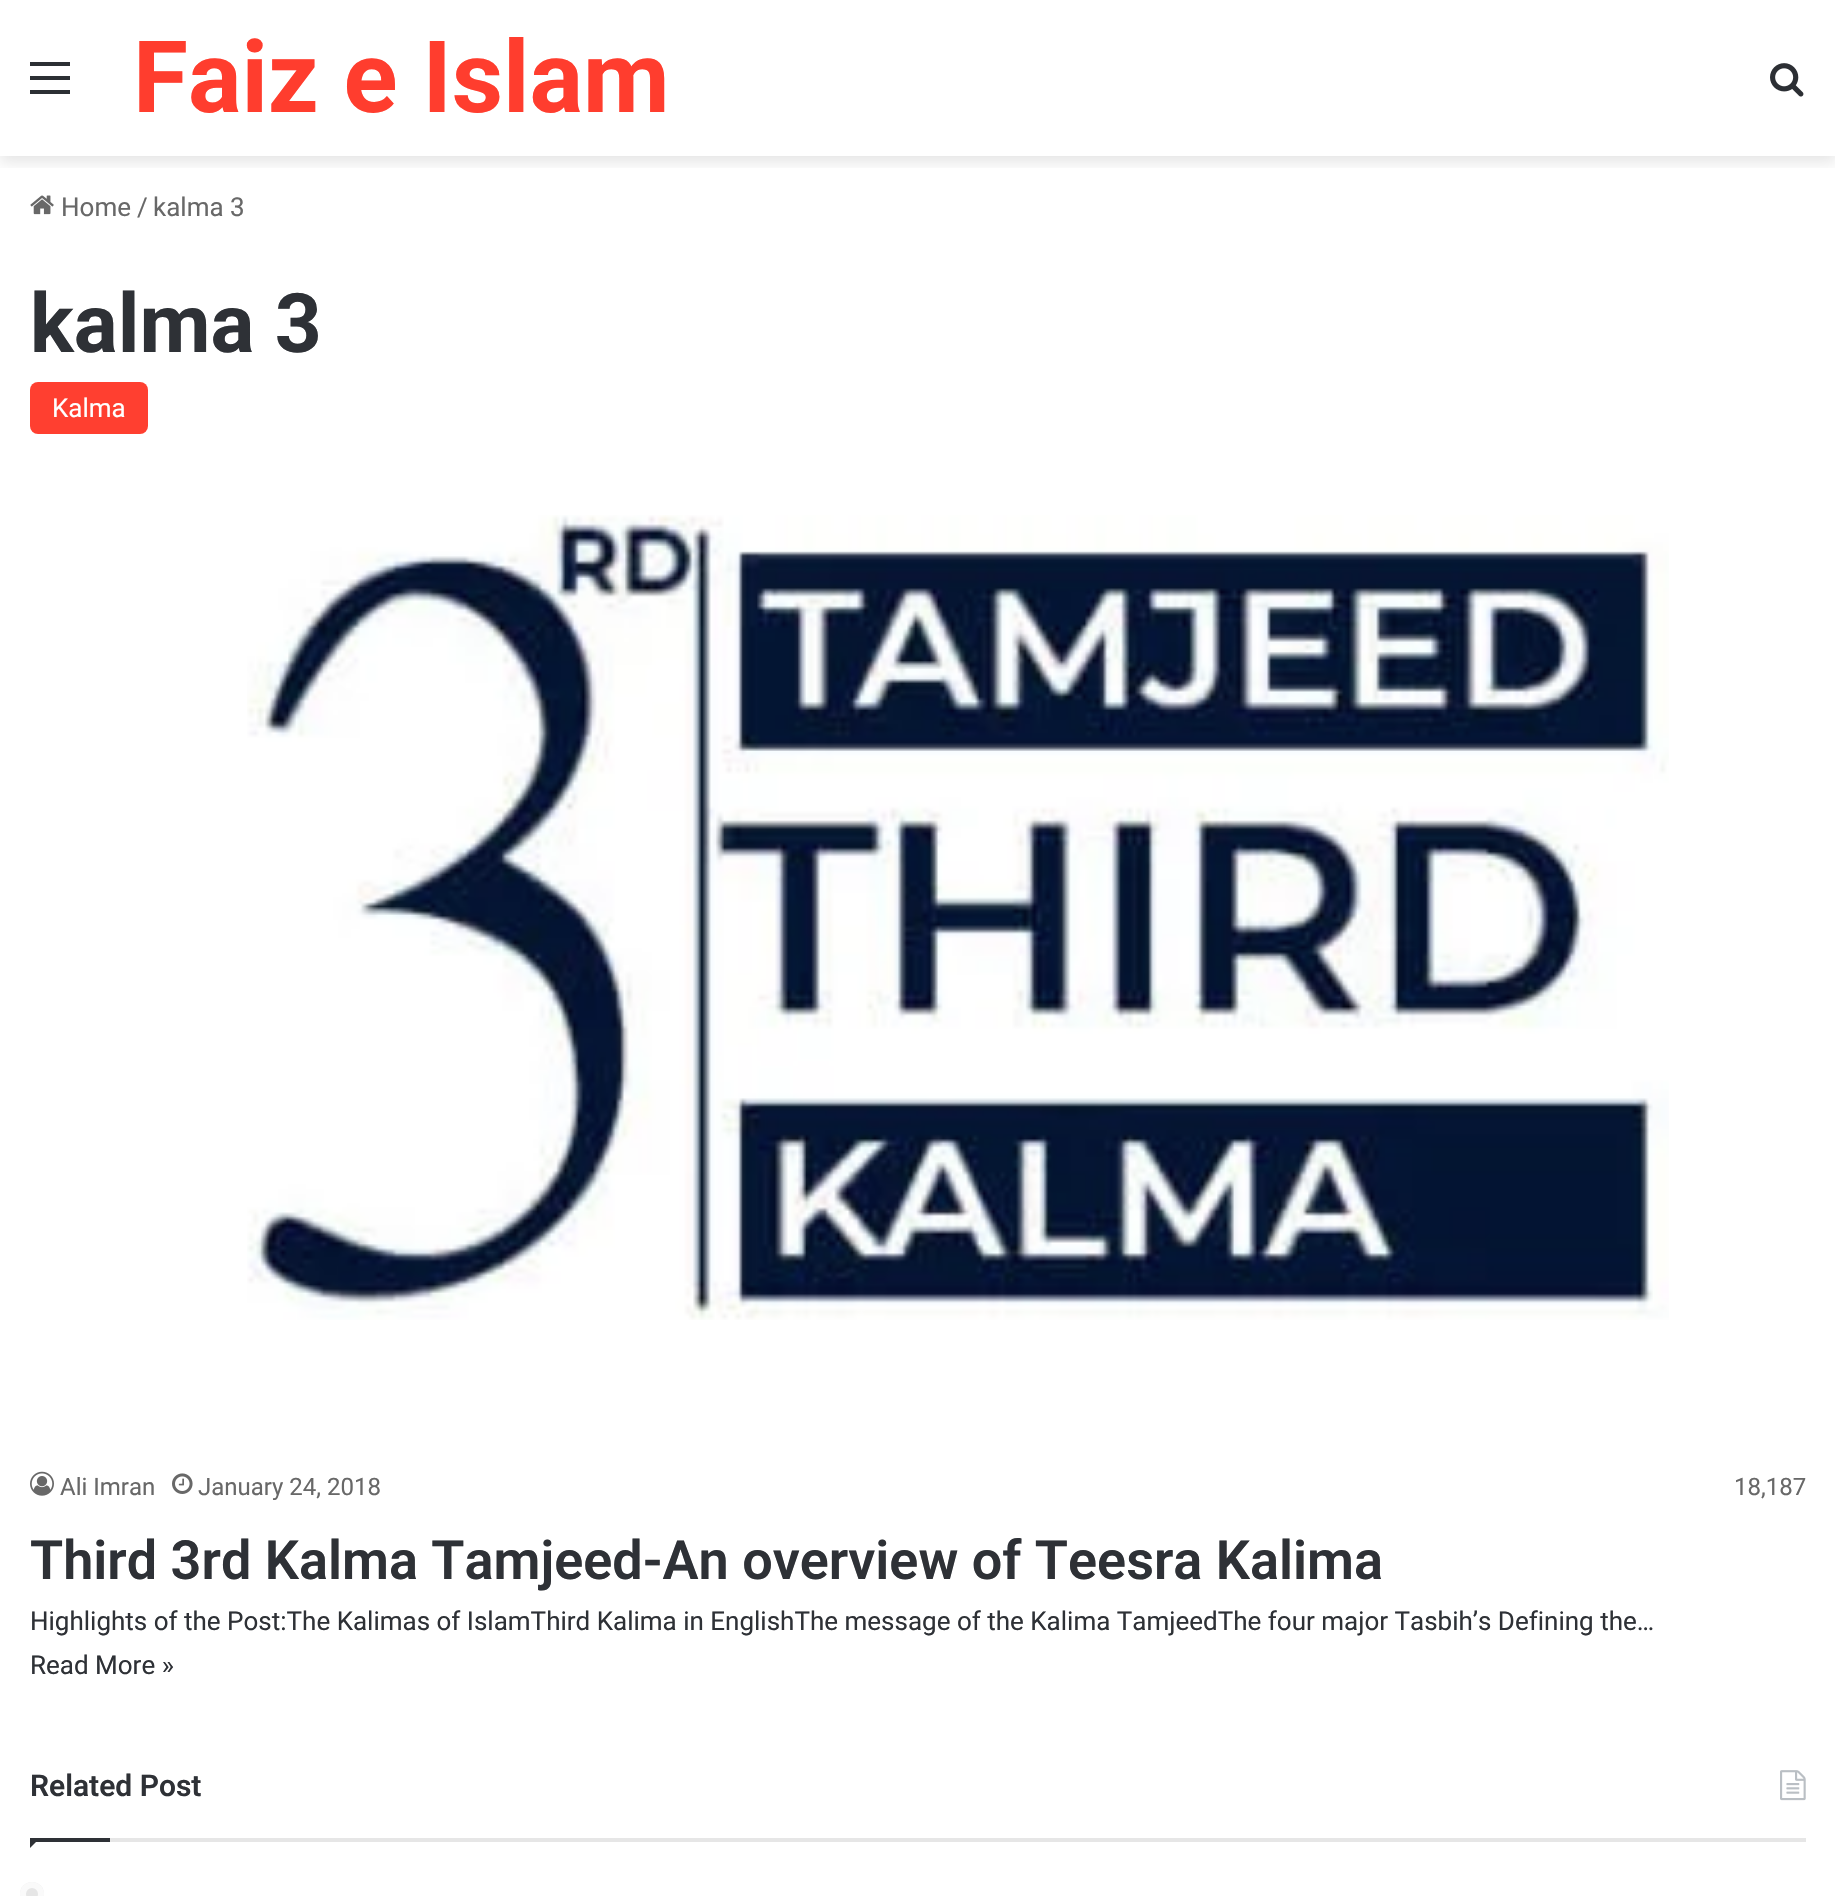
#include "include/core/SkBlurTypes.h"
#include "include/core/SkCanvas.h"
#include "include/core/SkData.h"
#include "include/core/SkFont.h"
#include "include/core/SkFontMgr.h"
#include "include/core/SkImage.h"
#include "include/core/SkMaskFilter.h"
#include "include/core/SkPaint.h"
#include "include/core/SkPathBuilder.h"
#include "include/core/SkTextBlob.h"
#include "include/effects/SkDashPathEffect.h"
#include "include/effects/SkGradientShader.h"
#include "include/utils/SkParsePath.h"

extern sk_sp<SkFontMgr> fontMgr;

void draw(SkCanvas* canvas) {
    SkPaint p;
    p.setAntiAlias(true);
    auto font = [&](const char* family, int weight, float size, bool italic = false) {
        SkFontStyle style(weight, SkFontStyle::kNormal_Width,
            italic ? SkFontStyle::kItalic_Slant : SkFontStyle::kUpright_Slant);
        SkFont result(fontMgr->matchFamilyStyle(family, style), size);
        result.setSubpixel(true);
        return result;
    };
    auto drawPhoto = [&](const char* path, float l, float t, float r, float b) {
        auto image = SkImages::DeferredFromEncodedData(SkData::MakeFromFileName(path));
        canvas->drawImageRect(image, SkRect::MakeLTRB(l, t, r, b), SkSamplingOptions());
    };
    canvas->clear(0xFFFFFFFF);
    canvas->save();
    canvas->clipRect(SkRect::MakeLTRB(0, 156, 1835, 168));
    p.setColor(0x1A000000);
    p.setMaskFilter(SkMaskFilter::MakeBlur(kNormal_SkBlurStyle, 7));
    canvas->drawRect(SkRect::MakeLTRB(0, 6, 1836, 162), p);
    p.setMaskFilter(nullptr);
    canvas->restore();
    {
        const struct { float l, t, r, b; SkColor color; } items[] = {
            {30, 76, 70, 80, 0xFF2C2F34},
            {30, 62, 70, 66, 0xFF2C2F34},
            {30, 90, 70, 94, 0xFF2C2F34},
        };
        for (auto [l, t, r, b, color] : items) {
            p.setColor(color);
            canvas->drawRect(SkRect::MakeLTRB(l, t, r, b), p);
        }
    }
    auto font1 = font("Roboto", 700, 100);
    p.setColor(0xFFFF3D2E);
    canvas->drawString("Faiz e Islam", 133, 112, font1, p);
    drawPhoto("media/1.png", 1770, 63, 1804, 97);
    drawPhoto("media/2.png", 30, 195, 54, 215);
    auto font2 = font("Roboto", 400, 26);
    p.setColor(0xFF686868);
    {
        const struct { const char* s; float x, y; } items[] = {
            {"Home", 61, 216},
            {"/", 137, 216},
            {"kalma 3", 153, 216},
        };
        for (auto [s, x, y] : items) {
            canvas->drawString(s, x, y, font2, p);
        }
    }
    auto font3 = font("Roboto", 700, 82);
    p.setColor(0xFF2E3136);
    canvas->drawString("kalma 3", 30, 352, font3, p);
    p.setColor(0xFFFF3F30);
    canvas->drawRoundRect(SkRect::MakeLTRB(30, 382, 148, 434), 8, 8, p);
    p.setColor(0xFFFFFFFF);
    canvas->drawString("Kalma", 52, 417, font2, p);
    drawPhoto("media/3.png", 247, 515, 1669, 1320);
    drawPhoto("media/4.png", 30, 1471, 54, 1496);
    auto font4 = font("Roboto", 400, 24);
    p.setColor(0xFF686868);
    canvas->drawString("Ali Imran", 60, 1495, font4, p);
    drawPhoto("media/5.png", 172, 1473, 193, 1494);
    canvas->drawString("January 24, 2018", 198, 1495, font4, p);
    canvas->drawString("18,187", 1734, 1495, font4, p);
    auto font5 = font("Roboto", 600, 54);
    p.setColor(0xFF2E3136);
    canvas->drawString("Third 3rd Kalma Tamjeed-An overview of Teesra Kalima", 30, 1579, font5, p);
    canvas->drawString("Highlights of the Post:The Kalimas of IslamThird Kalima in EnglishThe message of the Kalima TamjeedThe four major Tasbih’s Defining the…", 30, 1630, font2, p);
    canvas->drawString("Read More »", 30, 1674, font2, p);
    p.setColor(0xFFE6E6E6);
    canvas->drawRect(SkRect::MakeLTRB(110, 1838, 1806, 1842), p);
    auto font6 = font("Roboto", 600, 30);
    p.setColor(0xFF2E3136);
    canvas->drawString("Related Post", 30, 1796, font6, p);
    drawPhoto("media/6.png", 1780, 1770, 1806, 1801);
    canvas->drawPath(SkPathBuilder().moveTo(30, 1838).lineTo(40, 1838).lineTo(30, 1848).close().detach(), p);
    canvas->drawRect(SkRect::MakeLTRB(30, 1838, 110, 1842), p);
    p.setColor(0xFFE6E6E6);
    canvas->drawCircle(32, 1894, 12, p);
    p.setStyle(SkPaint::kStroke_Style);
    p.setStrokeWidth(6);
    p.setColor(0xCCFFFFFF);
    canvas->drawCircle(32, 1894, 9, p);
}
